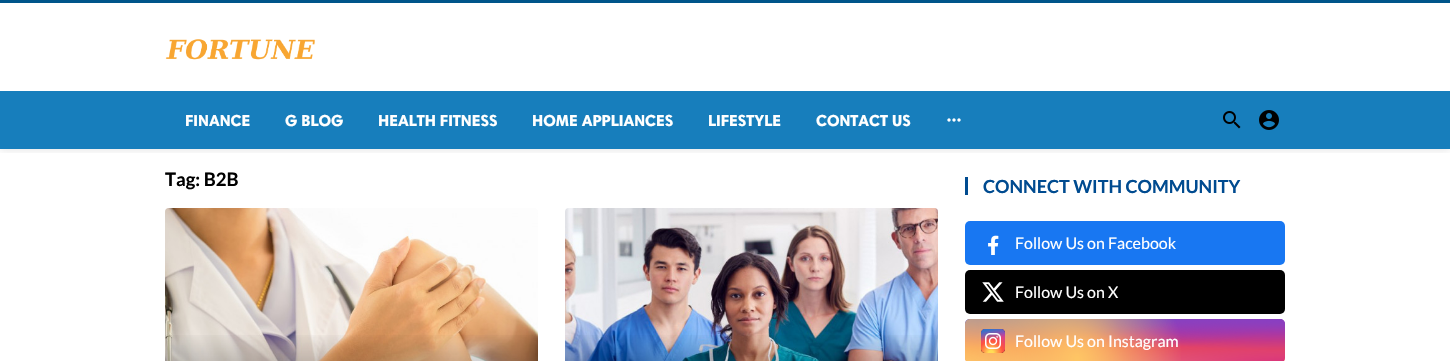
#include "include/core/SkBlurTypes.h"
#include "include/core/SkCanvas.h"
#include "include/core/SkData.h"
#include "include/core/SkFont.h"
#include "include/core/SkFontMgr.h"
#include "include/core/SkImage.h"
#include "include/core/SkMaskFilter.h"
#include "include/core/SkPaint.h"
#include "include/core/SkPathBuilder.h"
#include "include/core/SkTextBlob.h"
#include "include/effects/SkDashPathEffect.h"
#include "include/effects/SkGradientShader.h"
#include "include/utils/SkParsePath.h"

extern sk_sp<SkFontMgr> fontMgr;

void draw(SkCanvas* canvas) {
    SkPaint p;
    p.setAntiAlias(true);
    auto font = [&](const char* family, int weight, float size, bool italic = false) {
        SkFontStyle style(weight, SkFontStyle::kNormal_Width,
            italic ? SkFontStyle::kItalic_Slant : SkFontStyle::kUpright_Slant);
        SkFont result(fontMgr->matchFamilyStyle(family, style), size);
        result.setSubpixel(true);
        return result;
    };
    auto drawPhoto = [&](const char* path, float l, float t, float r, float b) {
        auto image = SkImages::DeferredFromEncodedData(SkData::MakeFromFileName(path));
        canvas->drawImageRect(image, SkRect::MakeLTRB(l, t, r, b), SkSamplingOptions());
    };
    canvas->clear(0xFFFFFFFF);
    canvas->save();
    canvas->clipRect(SkRect::MakeLTRB(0, 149, 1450, 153));
    p.setColor(0x1A000000);
    p.setMaskFilter(SkMaskFilter::MakeBlur(kNormal_SkBlurStyle, 4));
    canvas->drawRect(SkRect::MakeLTRB(0, 1, 1450, 150), p);
    p.setMaskFilter(nullptr);
    canvas->restore();
    p.setColor(0xFF00558A);
    canvas->drawRect(SkRect::MakeLTRB(0, 0, 1450, 3), p);
    drawPhoto("media/1.png", 165, 39, 315, 60);
    p.setColor(0xFF177EBC);
    canvas->drawRect(SkRect::MakeLTRB(0, 91, 1450, 149), p);
    auto font1 = font("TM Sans", 700, 16);
    p.setColor(0xFFFFFFFF);
    {
        const struct { const char* s; float x, y; } items[] = {
            {"FINANCE", 185, 126},
            {"G BLOG", 285, 126},
            {"HEALTH FITNESS", 378, 126},
            {"HOME APPLIANCES", 532, 126},
            {"LIFESTYLE", 708, 126},
            {"CONTACT US", 816, 126},
        };
        for (auto [s, x, y] : items) {
            canvas->drawString(s, x, y, font1, p);
        }
    }
    drawPhoto("media/2.png", 947, 118, 961, 122);
    drawPhoto("media/3.png", 1223, 111, 1241, 129);
    drawPhoto("media/4.png", 1259, 110, 1279, 130);
    auto font2 = font("Lato", 700, 18.5f);
    p.setColor(0xFF000000);
    canvas->drawString("Tag: B2B", 165, 186, font2, p);
    drawPhoto("media/5.png", 165, 208, 538, 361);
    {
        const SkColor colors[] = {0x00000000, 0xCC000000, 0xCC000000};
        const float stops[] = {0.45f, 0.99f, 1};
        const SkPoint ends[] = {{352, 208}, {352, 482}};
        p.setShader(SkGradientShader::MakeLinear(ends, colors, stops, 3, SkTileMode::kClamp));
        p.setAlpha(255);
    }
    canvas->drawRect(SkRect::MakeLTRB(165, 335, 538, 361), p);
    drawPhoto("media/6.png", 565, 208, 938, 361);
    {
        const SkColor colors[] = {0x00000000, 0xCC000000, 0xCC000000};
        const float stops[] = {0.45f, 0.99f, 1};
        const SkPoint ends[] = {{752, 208}, {752, 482}};
        p.setShader(SkGradientShader::MakeLinear(ends, colors, stops, 3, SkTileMode::kClamp));
        p.setAlpha(255);
    }
    canvas->drawRect(SkRect::MakeLTRB(565, 335, 938, 361), p);
    p.setShader(nullptr);
    p.setColor(0xFF004B90);
    canvas->drawRect(SkRect::MakeLTRB(965, 177, 968, 195), p);
    auto font3 = font("Lato", 700, 18);
    canvas->drawString("CONNECT WITH COMMUNITY", 983, 193, font3, p);
    p.setColor(0xFF1877F2);
    canvas->drawRoundRect(SkRect::MakeLTRB(965, 221, 1285, 265), 5, 5, p);
    drawPhoto("media/7.png", 988, 235, 999, 255);
    auto font4 = font("Lato", 400, 16);
    p.setColor(0xFFFFFFFF);
    canvas->drawString("Follow Us on Facebook", 1015, 249, font4, p);
    p.setColor(0xFF000000);
    canvas->drawRoundRect(SkRect::MakeLTRB(965, 270, 1285, 314), 5, 5, p);
    drawPhoto("media/8.png", 982, 282, 1004, 302);
    p.setColor(0xFFFFFFFF);
    canvas->drawString("Follow Us on X", 1015, 298, font4, p);
    {
        const SkColor colors[] = {0xFF6559CA, 0xFFBC318F, 0xFFE33F5F, 0xFFF77638, 0xFFFEC66D};
        const float stops[] = {0, 0.3f, 0.5f, 0.7f, 1};
        const SkPoint ends[] = {{1125, 319}, {1125, 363}};
        p.setShader(SkGradientShader::MakeLinear(ends, colors, stops, 5, SkTileMode::kClamp));
        p.setAlpha(255);
    }
    canvas->drawRoundRect(SkRect::MakeLTRB(965, 319, 1285, 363), 5, 5, p);
    {
        const SkColor colors[] = {0xFFD9317A, 0x00D9317A};
        const float stops[] = {0, 1};
        SkMatrix m = SkMatrix::Translate(1285, 363).preScale(453, 62);
        p.setShader(SkGradientShader::MakeRadial({0, 0}, 1, colors, stops, 2, SkTileMode::kClamp, 0, &m));
        p.setAlpha(255);
    }
    canvas->drawRoundRect(SkRect::MakeLTRB(965, 319, 1285, 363), 5, 5, p);
    {
        const SkColor colors[] = {0xFF893DC2, 0x00893DC2};
        const float stops[] = {0, 0.5f};
        SkMatrix m = SkMatrix::Translate(1157, 310).preScale(272, 75);
        p.setShader(SkGradientShader::MakeRadial({0, 0}, 1, colors, stops, 2, SkTileMode::kClamp, 0, &m));
        p.setAlpha(255);
    }
    canvas->drawRect(SkRect::MakeLTRB(1041, 319, 1283, 347), p);
    {
        const SkColor colors[] = {0xFF893DC2, 0x00893DC2};
        const float stops[] = {0, 0.5f};
        SkMatrix m = SkMatrix::Translate(1285, 319).preScale(453, 62);
        p.setShader(SkGradientShader::MakeRadial({0, 0}, 1, colors, stops, 2, SkTileMode::kClamp, 0, &m));
        p.setAlpha(255);
    }
    canvas->drawRoundRect(SkRect::MakeLTRB(965, 319, 1285, 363), 5, 5, p);
    {
        const SkColor colors[] = {0xFF5258CF, 0x005258CF};
        const float stops[] = {0, 0.5f};
        SkMatrix m = SkMatrix::Translate(1029, 297).preScale(362, 93);
        p.setShader(SkGradientShader::MakeRadial({0, 0}, 1, colors, stops, 2, SkTileMode::kClamp, 0, &m));
        p.setAlpha(255);
    }
    canvas->drawRoundRect(SkRect::MakeLTRB(965, 319, 1285, 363), 5, 5, p);
    {
        const SkColor colors[] = {0xFF5258CF, 0x005258CF};
        const float stops[] = {0, 0.5f};
        SkMatrix m = SkMatrix::Translate(965, 308).preScale(453, 78);
        p.setShader(SkGradientShader::MakeRadial({0, 0}, 1, colors, stops, 2, SkTileMode::kClamp, 0, &m));
        p.setAlpha(255);
    }
    canvas->drawRoundRect(SkRect::MakeLTRB(965, 319, 1285, 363), 5, 5, p);
    {
        const SkColor colors[] = {0xFFFEC564, 0x00FEC564};
        const float stops[] = {0, 0.5f};
        p.setShader(SkGradientShader::MakeRadial({965, 381}, 326, colors, stops, 2, SkTileMode::kClamp));
        p.setAlpha(255);
    }
    canvas->drawRoundRect(SkRect::MakeLTRB(965, 319, 1285, 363), 5, 5, p);
    {
        const SkColor colors[] = {0xFFFEC564, 0x00FEC564};
        const float stops[] = {0, 0.5f};
        p.setShader(SkGradientShader::MakeRadial({1077, 359}, 212, colors, stops, 2, SkTileMode::kClamp));
        p.setAlpha(255);
    }
    canvas->drawRect(SkRect::MakeLTRB(979, 319, 1181, 361), p);
    drawPhoto("media/9.png", 981, 329, 1005, 353);
    p.setShader(nullptr);
    p.setColor(0xFFFFFFFF);
    canvas->drawString("Follow Us on Instagram", 1015, 347, font4, p);
}
